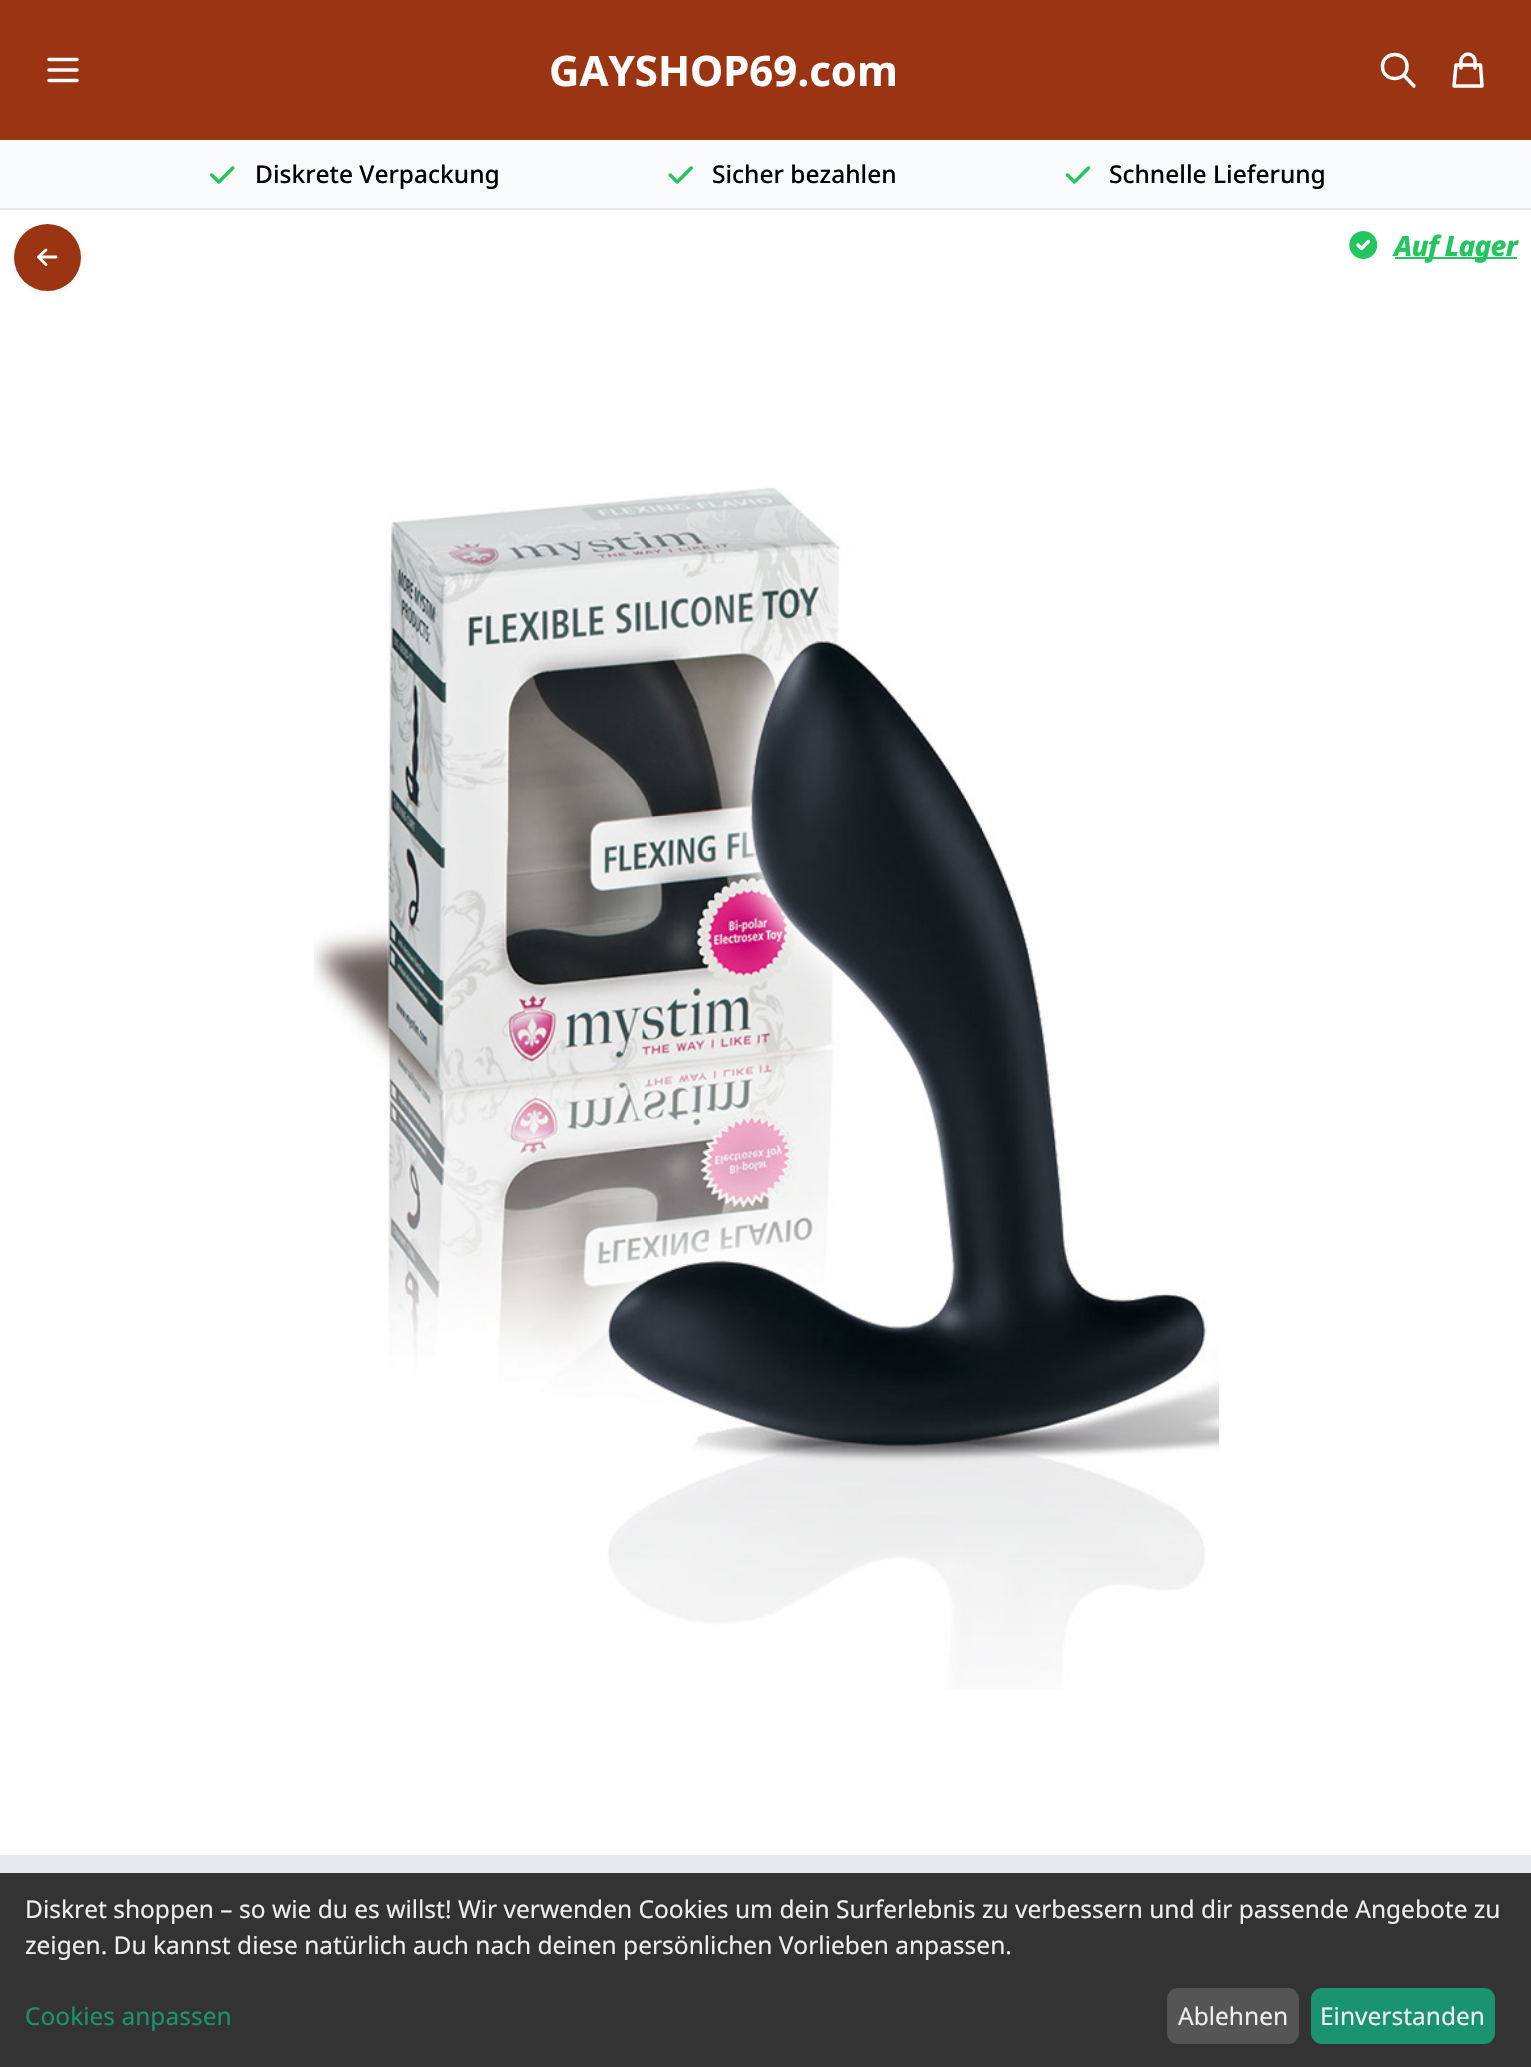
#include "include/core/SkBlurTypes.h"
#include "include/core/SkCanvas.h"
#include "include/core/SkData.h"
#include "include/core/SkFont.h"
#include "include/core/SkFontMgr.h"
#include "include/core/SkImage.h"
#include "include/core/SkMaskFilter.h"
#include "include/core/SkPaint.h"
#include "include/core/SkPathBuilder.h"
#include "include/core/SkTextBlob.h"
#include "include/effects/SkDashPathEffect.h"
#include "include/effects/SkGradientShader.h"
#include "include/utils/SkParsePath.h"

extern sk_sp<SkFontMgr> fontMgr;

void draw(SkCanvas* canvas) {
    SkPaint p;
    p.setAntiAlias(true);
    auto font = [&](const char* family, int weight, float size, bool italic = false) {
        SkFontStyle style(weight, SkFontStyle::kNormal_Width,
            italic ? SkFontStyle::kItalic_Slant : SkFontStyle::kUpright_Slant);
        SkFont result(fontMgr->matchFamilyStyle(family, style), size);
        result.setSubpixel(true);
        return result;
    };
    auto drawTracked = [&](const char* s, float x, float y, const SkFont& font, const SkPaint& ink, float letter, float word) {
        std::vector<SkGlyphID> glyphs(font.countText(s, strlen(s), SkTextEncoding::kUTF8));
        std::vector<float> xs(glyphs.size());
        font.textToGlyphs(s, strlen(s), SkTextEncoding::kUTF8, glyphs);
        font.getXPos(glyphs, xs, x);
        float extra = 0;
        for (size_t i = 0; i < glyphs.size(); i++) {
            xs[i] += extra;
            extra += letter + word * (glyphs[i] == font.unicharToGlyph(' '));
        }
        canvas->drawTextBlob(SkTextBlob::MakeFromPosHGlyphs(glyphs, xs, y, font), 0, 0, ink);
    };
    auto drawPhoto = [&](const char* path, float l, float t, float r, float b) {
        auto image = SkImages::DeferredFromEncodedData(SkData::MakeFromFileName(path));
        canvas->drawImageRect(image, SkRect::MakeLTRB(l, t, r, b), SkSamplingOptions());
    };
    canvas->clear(0xFFFFFFFF);
    p.setColor(0xFF9A3412);
    canvas->drawRect(SkRect::MakeLTRB(0, 0, 1531, 140), p);
    p.setStyle(SkPaint::kStroke_Style);
    p.setStrokeWidth(3.5f);
    p.setStrokeCap(SkPaint::kRound_Cap);
    p.setStrokeJoin(SkPaint::kRound_Join);
    p.setColor(0xFFFFFFFF);
    canvas->drawPath(SkPathBuilder().moveTo(49, 59.5f).lineTo(77, 59.5f).moveTo(49, 70).lineTo(77, 70).moveTo(49, 80.5f).lineTo(77, 80.5f).detach(), p);
    auto font1 = font("Noto Sans", 700, 42);
    p.setStyle(SkPaint::kFill_Style);
    canvas->drawString("GAYSHOP69.com", 549, 86, font1, p);
    p.setStyle(SkPaint::kStroke_Style);
    canvas->drawPath(SkPathBuilder().moveTo(1414, 86).lineTo(1403.5f, 75).moveTo(1407, 66.5f).cubicTo(1407, 82.5f, 1382.5f, 82.5f, 1382.5f, 66.5f).cubicTo(1382.5f, 50.5f, 1407, 50.5f, 1407, 66.5f).close().detach(), p);
    canvas->drawPath(SkPathBuilder().moveTo(1475, 68).lineTo(1475, 61).cubicTo(1475, 57.5f, 1472, 54, 1468, 54).cubicTo(1464.5f, 54, 1461, 57.5f, 1461, 61).lineTo(1461, 68).moveTo(1456, 65).lineTo(1480.5f, 65).lineTo(1482, 86).lineTo(1454, 86).close().detach(), p);
    p.setStyle(SkPaint::kFill_Style);
    p.setColor(0xFFF9FAFB);
    canvas->drawRect(SkRect::MakeLTRB(0, 140, 1531, 208), p);
    p.setColor(0xFFE5E7EB);
    canvas->drawRect(SkRect::MakeLTRB(0, 208, 1531, 210), p);
    drawPhoto("media/1.png", 210, 166, 235, 184);
    auto font2 = font("Noto Sans", 500, 24.5f);
    p.setColor(0xFF000000);
    canvas->drawString("Diskrete Verpackung", 255, 183, font2, p);
    drawPhoto("media/2.png", 668, 166, 693, 184);
    canvas->drawString("Sicher bezahlen", 712, 183, font2, p);
    drawPhoto("media/3.png", 1065, 166, 1091, 184);
    canvas->drawString("Schnelle Lieferung", 1109, 183, font2, p);
    p.setColor(0x0D000000);
    p.setMaskFilter(SkMaskFilter::MakeBlur(kNormal_SkBlurStyle, 2));
    canvas->drawRoundRect(SkRect::MakeLTRB(14, 226, 81, 292), 33, 33, p);
    p.setMaskFilter(nullptr);
    p.setColor(0xFF9A3412);
    canvas->drawCircle(47.5f, 257.5f, 33.5f, p);
    p.setStyle(SkPaint::kStroke_Style);
    p.setStrokeWidth(2.9f);
    p.setColor(0xFFFFFFFF);
    canvas->drawPath(SkPathBuilder().moveTo(46, 264.5f).lineTo(38.5f, 257).moveTo(38.5f, 257).lineTo(46, 250).moveTo(38.5f, 257).lineTo(56, 257).detach(), p);
    drawPhoto("media/4.png", 1349, 231, 1378, 259);
    p.setStyle(SkPaint::kFill_Style);
    p.setColor(0xFF22C55E);
    canvas->drawRect(SkRect::MakeLTRB(1395, 257, 1517, 259), p);
    auto font3 = font("Noto Sans", 800, 28, true);
    drawTracked("Auf Lager", 1394, 256, font3, p, -0.75f, 0);
    drawPhoto("media/5.png", 314, 486, 1219, 1689);
    p.setColor(0xFFE5E7EB);
    canvas->drawRect(SkRect::MakeLTRB(0, 1855, 1531, 1873), p);
    p.setColor(0xFF333333);
    canvas->drawRect(SkRect::MakeLTRB(0, 1873, 1531, 2067), p);
    auto font4 = font("Noto Sans", 400, 24.5f);
    p.setColor(0xFFEEEEEE);
    canvas->drawString("Diskret shoppen – so wie du es willst! Wir verwenden Cookies um dein Surferlebnis zu verbessern und dir passende Angebote zu", 25, 1918, font4, p);
    canvas->drawString("zeigen. Du kannst diese natürlich auch nach deinen persönlichen Vorlieben anpassen.", 25, 1954, font4, p);
    p.setColor(0xFF1A936F);
    canvas->drawString("Cookies anpassen", 25, 2025, font4, p);
    p.setColor(0xFF555555);
    canvas->drawRoundRect(SkRect::MakeLTRB(1167, 1988, 1299, 2044), 11, 11, p);
    p.setColor(0xFFEEEEEE);
    canvas->drawString("Ablehnen", 1178, 2025, font4, p);
    p.setColor(0xFF1A936F);
    canvas->drawRoundRect(SkRect::MakeLTRB(1311, 1988, 1495, 2044), 11, 11, p);
    p.setColor(0xFFEEEEEE);
    canvas->drawString("Einverstanden", 1320, 2025, font4, p);
}
